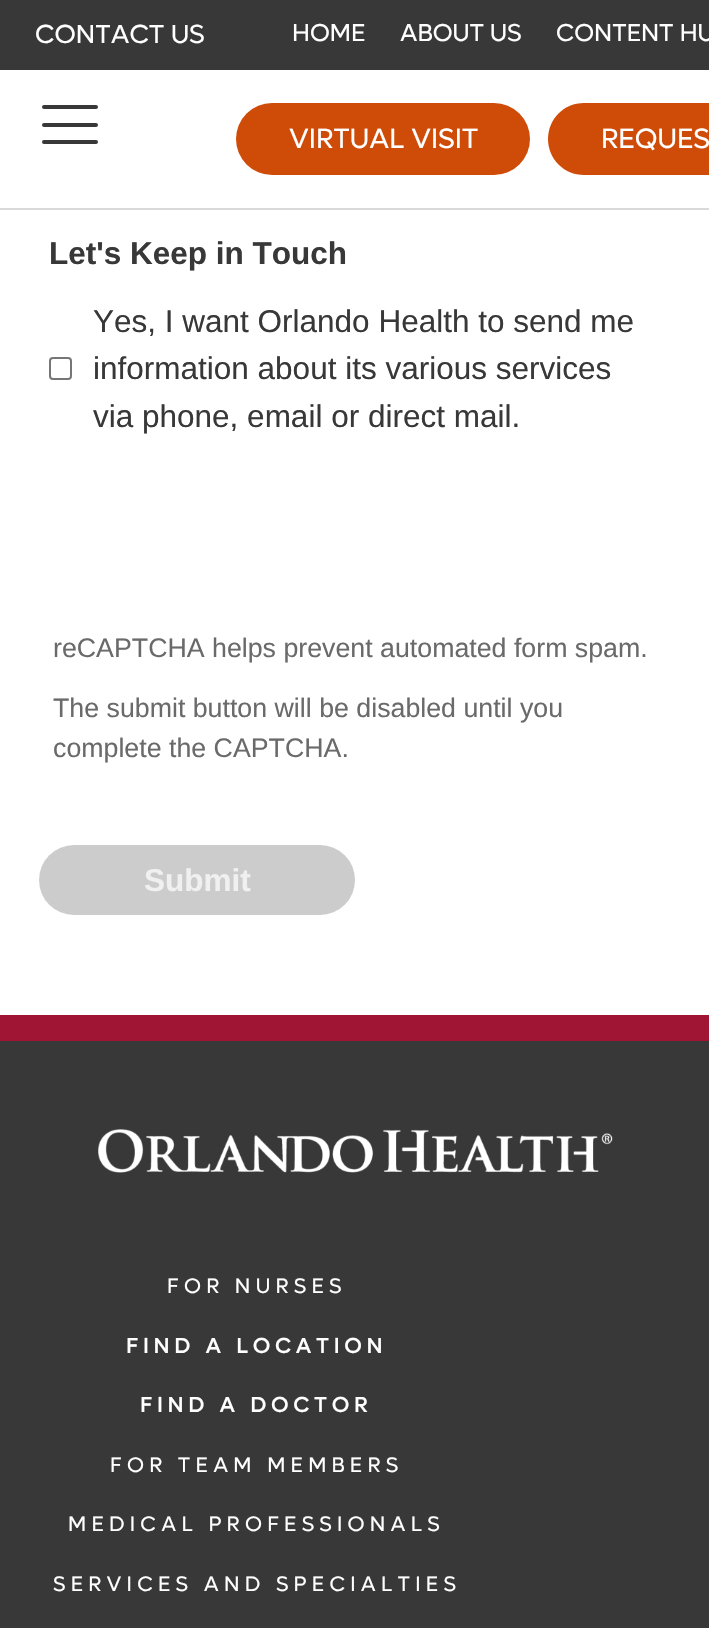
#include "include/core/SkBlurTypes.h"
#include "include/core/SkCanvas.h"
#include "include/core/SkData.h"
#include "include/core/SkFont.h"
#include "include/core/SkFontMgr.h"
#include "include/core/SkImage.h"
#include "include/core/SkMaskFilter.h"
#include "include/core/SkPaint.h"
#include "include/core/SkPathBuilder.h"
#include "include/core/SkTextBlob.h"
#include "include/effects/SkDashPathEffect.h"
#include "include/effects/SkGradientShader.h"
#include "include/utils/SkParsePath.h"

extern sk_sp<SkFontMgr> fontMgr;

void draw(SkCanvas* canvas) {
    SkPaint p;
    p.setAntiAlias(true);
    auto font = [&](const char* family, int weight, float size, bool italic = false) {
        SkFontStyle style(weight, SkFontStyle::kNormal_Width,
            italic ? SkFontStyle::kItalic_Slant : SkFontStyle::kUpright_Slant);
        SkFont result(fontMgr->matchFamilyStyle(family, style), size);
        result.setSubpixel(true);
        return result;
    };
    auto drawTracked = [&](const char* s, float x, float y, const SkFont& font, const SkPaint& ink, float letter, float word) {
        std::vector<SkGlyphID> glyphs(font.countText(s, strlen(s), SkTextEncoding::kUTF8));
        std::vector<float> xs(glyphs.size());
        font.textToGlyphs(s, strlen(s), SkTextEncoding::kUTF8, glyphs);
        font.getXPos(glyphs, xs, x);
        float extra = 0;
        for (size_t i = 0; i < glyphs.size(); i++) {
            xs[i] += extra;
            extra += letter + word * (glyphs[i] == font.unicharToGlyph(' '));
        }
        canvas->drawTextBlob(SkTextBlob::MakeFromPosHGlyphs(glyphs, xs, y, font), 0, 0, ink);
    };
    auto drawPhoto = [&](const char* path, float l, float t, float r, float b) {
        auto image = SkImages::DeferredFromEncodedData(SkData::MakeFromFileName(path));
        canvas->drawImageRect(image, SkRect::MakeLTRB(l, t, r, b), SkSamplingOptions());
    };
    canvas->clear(0xFFFFFFFF);
    p.setColor(0xFF393839);
    canvas->drawRect(SkRect::MakeLTRB(0, 0, 709, 70), p);
    auto font1 = font("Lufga", 400, 26.25f);
    p.setColor(0xFFFFFFFF);
    canvas->drawString("CONTACT US", 35, 43, font1, p);
    auto font2 = font("Lufga", 400, 24.5f);
    {
        const struct { const char* s; float x, y; } items[] = {
            {"HOME", 292, 41},
            {"ABOUT US", 400, 41},
            {"CONTENT HU", 556, 41},
        };
        for (auto [s, x, y] : items) {
            canvas->drawString(s, x, y, font2, p);
        }
    }
    p.setColor(0xFFD9D9D9);
    canvas->drawRect(SkRect::MakeLTRB(0, 208, 709, 210), p);
    p.setColor(0xFF393839);
    canvas->drawRoundRect(SkRect::MakeLTRB(42, 123, 98, 127), 2, 2, p);
    canvas->drawRoundRect(SkRect::MakeLTRB(42, 105, 98, 109), 2, 2, p);
    canvas->drawRoundRect(SkRect::MakeLTRB(42, 140, 98, 144), 2, 2, p);
    p.setColor(0xFFCF4B08);
    canvas->drawRoundRect(SkRect::MakeLTRB(236, 103, 530, 175), 36, 36, p);
    auto font3 = font("Lufga", 400, 28);
    p.setColor(0xFFFFFFFF);
    canvas->drawString("VIRTUAL VISIT", 289, 148, font3, p);
    p.setColor(0xFFCF4B08);
    canvas->drawPath(SkPathBuilder().moveTo(584, 103).lineTo(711, 103).lineTo(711, 175).lineTo(584, 175).cubicTo(564, 175, 548, 159, 548, 139).cubicTo(548, 119, 564, 103, 584, 103).close().detach(), p);
    p.setColor(0xFFFFFFFF);
    canvas->drawString("REQUES", 601, 148, font3, p);
    auto font4 = font("Liberation Sans", 700, 31.5f);
    p.setColor(0xFF393839);
    canvas->drawString("Let's Keep in Touch", 49, 264, font4, p);
    p.setStyle(SkPaint::kStroke_Style);
    p.setStrokeWidth(2);
    p.setColor(0xFF767676);
    canvas->drawRoundRect(SkRect::MakeLTRB(50, 358, 71, 379), 3, 3, p);
    auto font5 = font("Liberation Sans", 400, 31.5f);
    p.setStyle(SkPaint::kFill_Style);
    p.setColor(0xFF393839);
    {
        const struct { const char* s; float x, y; } items[] = {
            {"Yes, I want Orlando Health to send me", 93, 332},
            {"information about its various services", 93, 379},
            {"via phone, email or direct mail.", 93, 427},
        };
        for (auto [s, x, y] : items) {
            canvas->drawString(s, x, y, font5, p);
        }
    }
    auto font6 = font("Liberation Sans", 400, 26.75f);
    p.setColor(0xFF6B6A6B);
    {
        const struct { const char* s; float x, y; } items[] = {
            {"reCAPTCHA helps prevent automated form spam.", 53, 657},
            {"The submit button will be disabled until you", 53, 717},
            {"complete the CAPTCHA.", 53, 757},
        };
        for (auto [s, x, y] : items) {
            canvas->drawString(s, x, y, font6, p);
        }
    }
    p.setColor(0xFFCCCCCC);
    canvas->drawRoundRect(SkRect::MakeLTRB(39, 845, 355, 915), 35, 35, p);
    p.setColor(0xFFF0F0F0);
    canvas->drawString("Submit", 144, 891, font4, p);
    p.setColor(0xFF393839);
    canvas->drawRect(SkRect::MakeLTRB(0, 1041, 709, 1628), p);
    p.setColor(0xFFA01534);
    canvas->drawRect(SkRect::MakeLTRB(0, 1015, 709, 1041), p);
    drawPhoto("media/1.png", 98, 1129, 613, 1173);
    auto font7 = font("Lufga", 400, 21);
    p.setColor(0xFFFFFFFF);
    drawTracked("FOR NURSES", 167, 1293, font7, p, 5.25f, 0);
    auto font8 = font("Lufga", 700, 21);
    drawTracked("FIND A LOCATION", 126, 1353, font8, p, 5.25f, 0);
    drawTracked("FIND A DOCTOR", 140, 1412, font8, p, 5.25f, 0);
    {
        const struct { const char* s; float x, y; } items[] = {
            {"FOR TEAM MEMBERS", 110, 1472},
            {"MEDICAL PROFESSIONALS", 68, 1531},
            {"SERVICES AND SPECIALTIES", 53, 1591},
        };
        for (auto [s, x, y] : items) {
            drawTracked(s, x, y, font7, p, 5.25f, 0);
        }
    }
}
